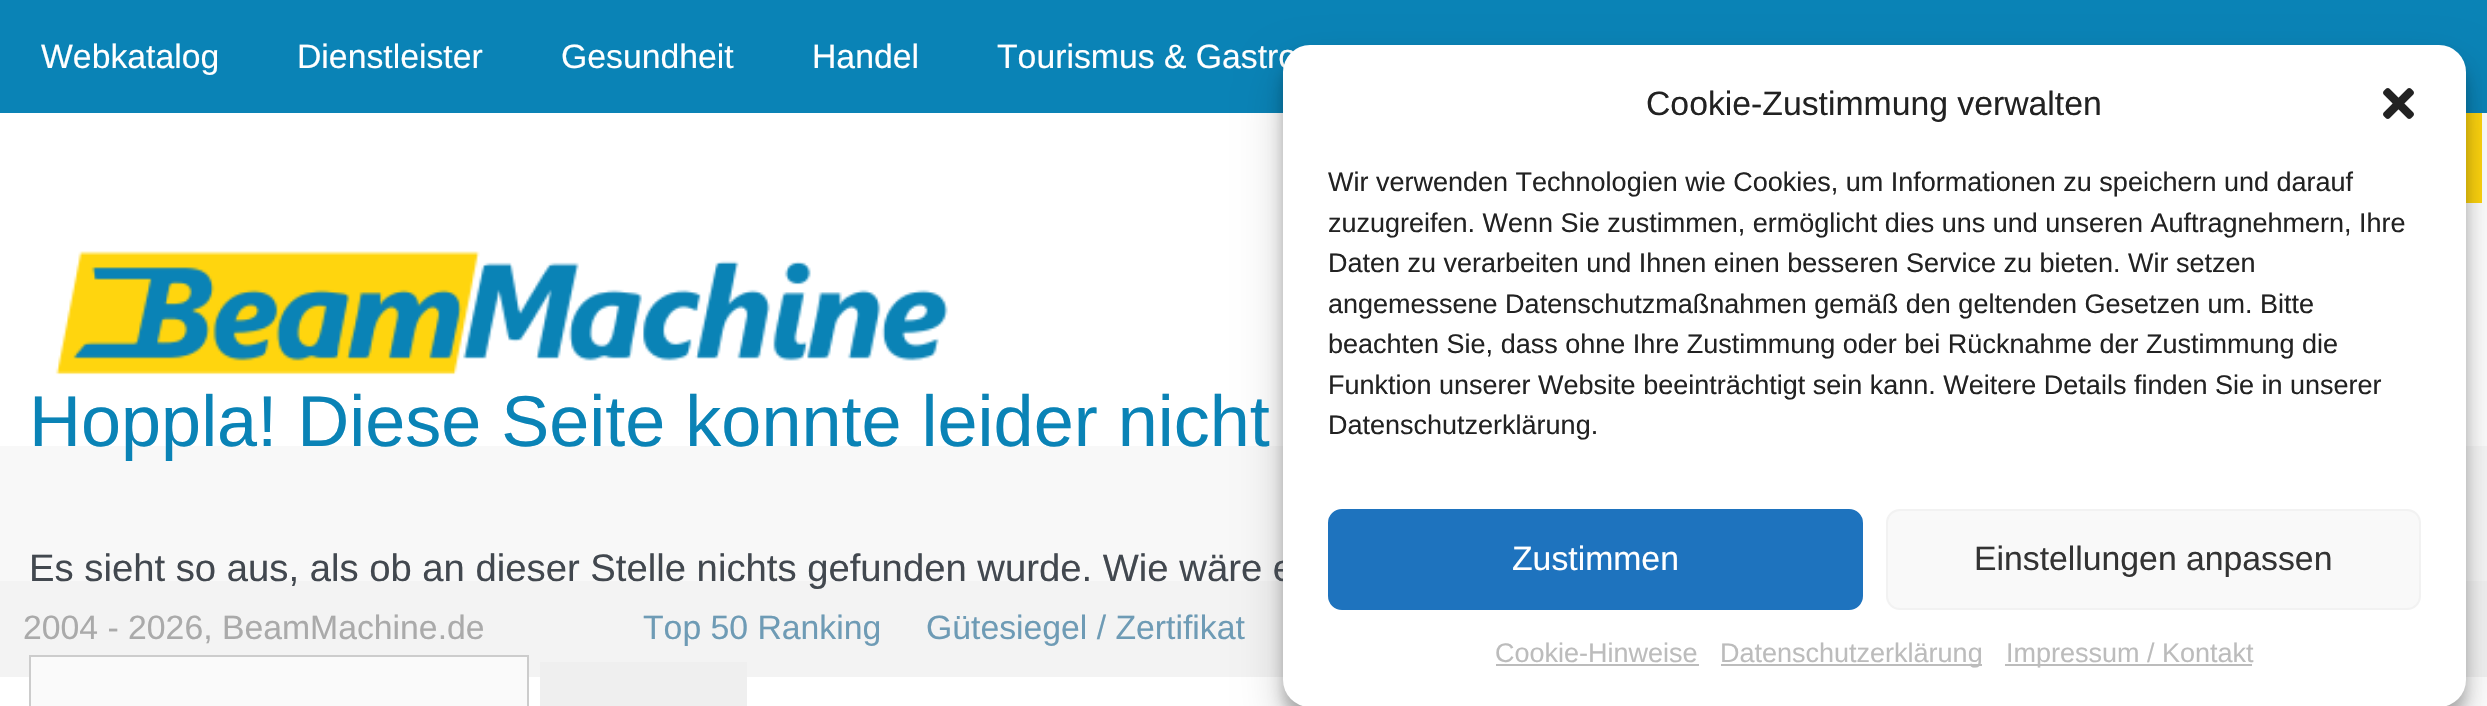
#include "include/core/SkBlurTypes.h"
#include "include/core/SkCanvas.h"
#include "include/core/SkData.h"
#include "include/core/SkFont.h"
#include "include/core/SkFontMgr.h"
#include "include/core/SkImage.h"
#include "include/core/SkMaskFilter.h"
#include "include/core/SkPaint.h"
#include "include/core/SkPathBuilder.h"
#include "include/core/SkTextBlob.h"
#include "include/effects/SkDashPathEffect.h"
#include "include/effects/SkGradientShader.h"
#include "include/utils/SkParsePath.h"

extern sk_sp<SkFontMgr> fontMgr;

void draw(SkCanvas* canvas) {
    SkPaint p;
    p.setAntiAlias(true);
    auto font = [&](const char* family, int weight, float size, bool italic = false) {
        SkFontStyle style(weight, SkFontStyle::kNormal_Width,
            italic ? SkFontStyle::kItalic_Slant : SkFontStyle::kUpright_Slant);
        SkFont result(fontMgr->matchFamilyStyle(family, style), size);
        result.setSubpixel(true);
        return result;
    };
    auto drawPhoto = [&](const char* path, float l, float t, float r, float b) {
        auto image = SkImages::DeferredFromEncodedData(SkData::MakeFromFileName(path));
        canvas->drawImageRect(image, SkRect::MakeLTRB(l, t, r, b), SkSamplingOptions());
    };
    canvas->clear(0xFFFFFFFF);
    p.setColor(0xFF0A83B6);
    canvas->drawRect(SkRect::MakeLTRB(0, 0, 2487, 113), p);
    auto font1 = font("Liberation Sans", 400, 33.75f);
    p.setColor(0xFFFFFFFF);
    {
        const struct { const char* s; float x, y; } items[] = {
            {"Webkatalog", 41, 68},
            {"Dienstleister", 297, 68},
            {"Gesundheit", 561, 68},
            {"Handel", 812, 68},
            {"Tourismus & Gastro", 997, 68},
        };
        for (auto [s, x, y] : items) {
            canvas->drawString(s, x, y, font1, p);
        }
    }
    {
        const struct { float l, t, r, b; SkColor color; } items[] = {
            {2466, 113, 2482, 203, 0xFFFFD50E},
            {0, 446, 2487, 581, 0xFFF8F8F8},
            {0, 581, 2487, 677, 0xFFF3F3F3},
        };
        for (auto [l, t, r, b, color] : items) {
            p.setColor(color);
            canvas->drawRect(SkRect::MakeLTRB(l, t, r, b), p);
        }
    }
    p.setColor(0x3B000000);
    p.setMaskFilter(SkMaskFilter::MakeBlur(kNormal_SkBlurStyle, 7));
    canvas->drawRoundRect(SkRect::MakeLTRB(1283, 59, 2466, 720), 27, 27, p);
    p.setMaskFilter(nullptr);
    p.setColor(0x30000000);
    p.setMaskFilter(SkMaskFilter::MakeBlur(kNormal_SkBlurStyle, 22.5f));
    canvas->drawRoundRect(SkRect::MakeLTRB(1283, 68, 2466, 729), 27, 27, p);
    p.setMaskFilter(nullptr);
    auto font2 = font("Liberation Sans", 400, 38.25f);
    p.setColor(0xFF42484F);
    canvas->drawString("Es sieht so aus, als ob an dieser Stelle nichts gefunden wurde. Wie wäre e", 29, 581, font2, p);
    p.setColor(0xFFFFFFFF);
    canvas->drawRoundRect(SkRect::MakeLTRB(1283, 45, 2466, 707), 27, 27, p);
    p.setColor(0xFF222222);
    canvas->drawString("Cookie-Zustimmung verwalten", 1646, 115, font1, p);
    drawPhoto("media/1.png", 2383, 88, 2414, 119);
    auto font3 = font("Liberation Sans", 400, 27);
    {
        const struct { const char* s; float x, y; } items[] = {
            {"Wir verwenden Technologien wie Cookies, um Informationen zu speichern und darauf", 1328, 191},
            {"zuzugreifen. Wenn Sie zustimmen, ermöglicht dies uns und unseren Auftragnehmern, Ihre", 1328, 232},
            {"Daten zu verarbeiten und Ihnen einen besseren Service zu bieten. Wir setzen", 1328, 272},
            {"angemessene Datenschutzmaßnahmen gemäß den geltenden Gesetzen um. Bitte", 1328, 313},
            {"beachten Sie, dass ohne Ihre Zustimmung oder bei Rücknahme der Zustimmung die", 1328, 353},
            {"Funktion unserer Website beeinträchtigt sein kann. Weitere Details finden Sie in unserer", 1328, 394},
            {"Datenschutzerklärung.", 1328, 434},
        };
        for (auto [s, x, y] : items) {
            canvas->drawString(s, x, y, font3, p);
        }
    }
    p.setColor(0xFF1E73BE);
    canvas->drawRoundRect(SkRect::MakeLTRB(1329, 510, 1862, 609), 13, 13, p);
    p.setStyle(SkPaint::kStroke_Style);
    p.setStrokeWidth(2);
    canvas->drawRoundRect(SkRect::MakeLTRB(1329, 510, 1862, 609), 13, 13, p);
    p.setStyle(SkPaint::kFill_Style);
    p.setColor(0xFFFFFFFF);
    canvas->drawString("Zustimmen", 1512, 570, font1, p);
    p.setColor(0xFFF9F9F9);
    canvas->drawRoundRect(SkRect::MakeLTRB(1887, 510, 2420, 609), 13, 13, p);
    p.setStyle(SkPaint::kStroke_Style);
    p.setColor(0xFFF2F2F2);
    canvas->drawRoundRect(SkRect::MakeLTRB(1887, 510, 2420, 609), 13, 13, p);
    p.setStyle(SkPaint::kFill_Style);
    p.setColor(0xFF333333);
    canvas->drawString("Einstellungen anpassen", 1974, 570, font1, p);
    p.setColor(0xFFBCBCBC);
    canvas->drawString("Cookie-Hinweise", 1495, 662, font3, p);
    canvas->drawRect(SkRect::MakeLTRB(1496, 664, 1699, 666), p);
    canvas->drawRect(SkRect::MakeLTRB(1721, 664, 1982, 666), p);
    canvas->drawString("Datenschutzerklärung", 1720, 662, font3, p);
    canvas->drawRect(SkRect::MakeLTRB(2005, 664, 2252, 666), p);
    canvas->drawString("Impressum / Kontakt", 2006, 662, font3, p);
    drawPhoto("media/2.png", 55, 251, 948, 375);
    auto font4 = font("Liberation Sans", 400, 72);
    p.setColor(0xFF0A83B6);
    canvas->drawString("Hoppla! Diese Seite konnte leider nicht", 29, 446, font4, p);
    p.setColor(0xFFFAFAFA);
    canvas->drawRect(SkRect::MakeLTRB(30, 656, 528, 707), p);
    p.setStyle(SkPaint::kStroke_Style);
    p.setColor(0xFFCCCCCC);
    canvas->drawRect(SkRect::MakeLTRB(30, 656, 528, 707), p);
    p.setStyle(SkPaint::kFill_Style);
    p.setColor(0xFFEFEFEF);
    canvas->drawRect(SkRect::MakeLTRB(540, 662, 747, 706), p);
    p.setColor(0xFFAAAAAA);
    canvas->drawString("2004 - 2026, BeamMachine.de", 23, 639, font1, p);
    p.setColor(0xFF6E9BB5);
    canvas->drawString("Top 50 Ranking", 643, 639, font1, p);
    canvas->drawString("Gütesiegel / Zertifikat", 926, 639, font1, p);
}
